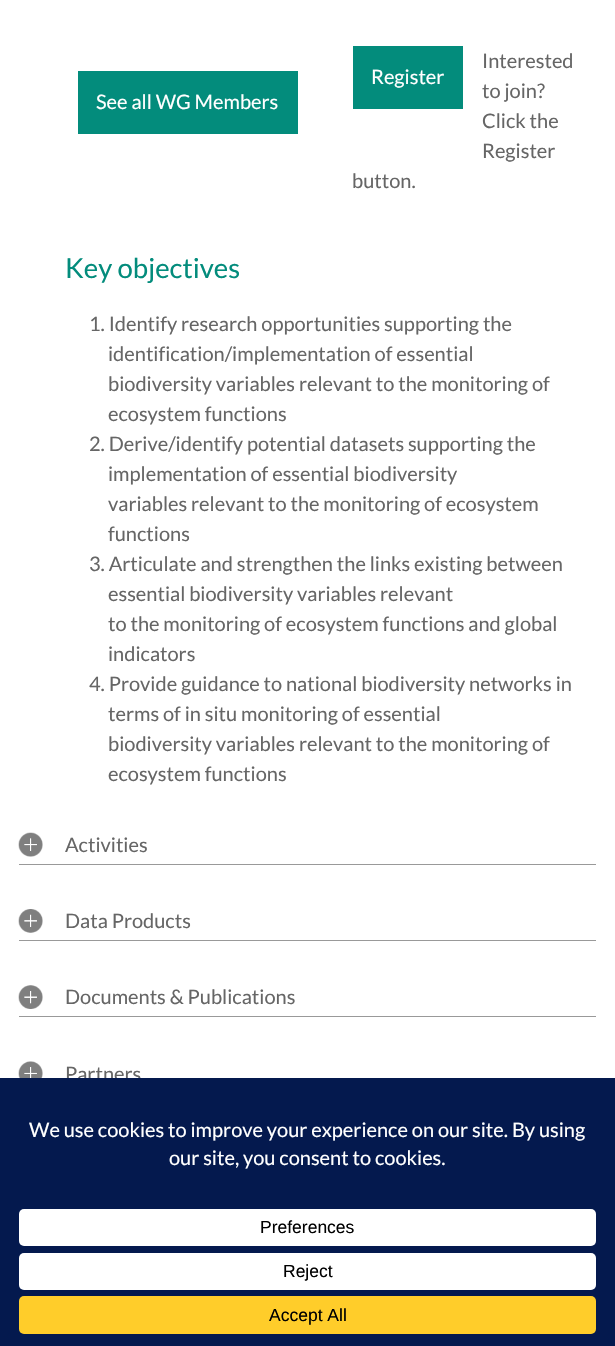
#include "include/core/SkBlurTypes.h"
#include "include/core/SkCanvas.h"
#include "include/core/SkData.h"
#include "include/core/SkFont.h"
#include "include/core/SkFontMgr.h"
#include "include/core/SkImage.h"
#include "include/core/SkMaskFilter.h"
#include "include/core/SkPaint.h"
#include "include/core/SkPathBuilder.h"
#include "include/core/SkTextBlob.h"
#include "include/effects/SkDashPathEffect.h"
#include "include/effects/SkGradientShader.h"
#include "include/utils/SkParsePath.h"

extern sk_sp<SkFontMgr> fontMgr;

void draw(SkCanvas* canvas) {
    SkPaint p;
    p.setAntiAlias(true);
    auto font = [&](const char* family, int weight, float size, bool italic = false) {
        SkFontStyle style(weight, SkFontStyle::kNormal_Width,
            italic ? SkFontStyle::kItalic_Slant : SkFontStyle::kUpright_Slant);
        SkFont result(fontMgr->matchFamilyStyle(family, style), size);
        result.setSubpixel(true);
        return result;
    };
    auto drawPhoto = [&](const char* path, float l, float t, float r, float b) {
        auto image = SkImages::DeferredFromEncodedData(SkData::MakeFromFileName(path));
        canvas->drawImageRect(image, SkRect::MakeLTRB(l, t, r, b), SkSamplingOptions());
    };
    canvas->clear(0xFFFFFFFF);
    p.setColor(0xFF038C7C);
    canvas->drawRect(SkRect::MakeLTRB(78, 71, 298, 134), p);
    auto font1 = font("Lato", 400, 20);
    p.setColor(0xFFFFFFFF);
    canvas->drawString("See all WG Members", 96, 109, font1, p);
    p.setColor(0xFF666666);
    canvas->drawString("Interested", 482, 68, font1, p);
    p.setColor(0xFF038C7C);
    canvas->drawRect(SkRect::MakeLTRB(353, 46, 463, 109), p);
    p.setColor(0xFFFFFFFF);
    canvas->drawString("Register", 371, 84, font1, p);
    p.setColor(0xFF666666);
    {
        const struct { const char* s; float x, y; } items[] = {
            {"to join?", 482, 98},
            {"Click the", 482, 128},
            {"Register", 482, 158},
            {"button.", 352, 188},
        };
        for (auto [s, x, y] : items) {
            canvas->drawString(s, x, y, font1, p);
        }
    }
    auto font2 = font("Lato", 400, 27.5f);
    p.setColor(0xFF038C7C);
    canvas->drawString("Key objectives", 65, 278, font2, p);
    p.setColor(0xFF666666);
    {
        const struct { const char* s; float x, y; } items[] = {
            {"1. Identify research opportunities supporting the", 89, 331},
            {"identification/implementation of essential", 108, 361},
            {"biodiversity variables relevant to the monitoring of", 108, 391},
            {"ecosystem functions", 108, 421},
            {"2. Derive/identify potential datasets supporting the", 89, 451},
            {"implementation of essential biodiversity", 108, 481},
            {"variables relevant to the monitoring of ecosystem", 108, 511},
            {"functions", 108, 541},
            {"3. Articulate and strengthen the links existing between", 89, 571},
            {"essential biodiversity variables relevant", 108, 601},
            {"to the monitoring of ecosystem functions and global", 108, 631},
            {"indicators", 108, 661},
            {"4. Provide guidance to national biodiversity networks in", 89, 691},
            {"terms of in situ monitoring of essential", 108, 721},
            {"biodiversity variables relevant to the monitoring of", 108, 751},
            {"ecosystem functions", 108, 781},
        };
        for (auto [s, x, y] : items) {
            canvas->drawString(s, x, y, font1, p);
        }
    }
    drawPhoto("media/1.png", 18, 832, 43, 857);
    p.setColor(0xFF999999);
    canvas->drawRect(SkRect::MakeLTRB(19, 864, 596, 865), p);
    p.setColor(0xFF666666);
    canvas->drawString("Activities", 65, 852, font1, p);
    drawPhoto("media/2.png", 18, 909, 43, 933);
    p.setColor(0xFF999999);
    canvas->drawRect(SkRect::MakeLTRB(19, 940, 596, 941), p);
    p.setColor(0xFF666666);
    canvas->drawString("Data Products", 65, 928, font1, p);
    drawPhoto("media/3.png", 18, 985, 43, 1009);
    p.setColor(0xFF999999);
    canvas->drawRect(SkRect::MakeLTRB(19, 1016, 596, 1017), p);
    p.setColor(0xFF666666);
    canvas->drawString("Documents & Publications", 65, 1004, font1, p);
    drawPhoto("media/4.png", 18, 1061, 43, 1078);
    canvas->drawString("Partners", 65, 1081, font1, p);
    p.setColor(0xFF04194E);
    canvas->drawRect(SkRect::MakeLTRB(0, 1078, 615, 1346), p);
    p.setColor(0xFFFFFFFF);
    canvas->drawString("We use cookies to improve your experience on our site. By using", 29, 1137, font1, p);
    canvas->drawString("our site, you consent to cookies.", 169, 1165, font1, p);
    canvas->drawRoundRect(SkRect::MakeLTRB(19, 1209, 596, 1246), 5, 5, p);
    auto font3 = font("Liberation Sans", 400, 17.5f);
    p.setColor(0xFF000000);
    canvas->drawString("Preferences", 260, 1233, font3, p);
    p.setColor(0xFFFFFFFF);
    canvas->drawRoundRect(SkRect::MakeLTRB(19, 1253, 596, 1290), 5, 5, p);
    p.setColor(0xFF000000);
    canvas->drawString("Reject", 283, 1277, font3, p);
    p.setColor(0xFFFFCD2A);
    canvas->drawRoundRect(SkRect::MakeLTRB(19, 1296, 596, 1334), 5, 5, p);
    p.setColor(0xFF000000);
    canvas->drawString("Accept All", 269, 1321, font3, p);
}
